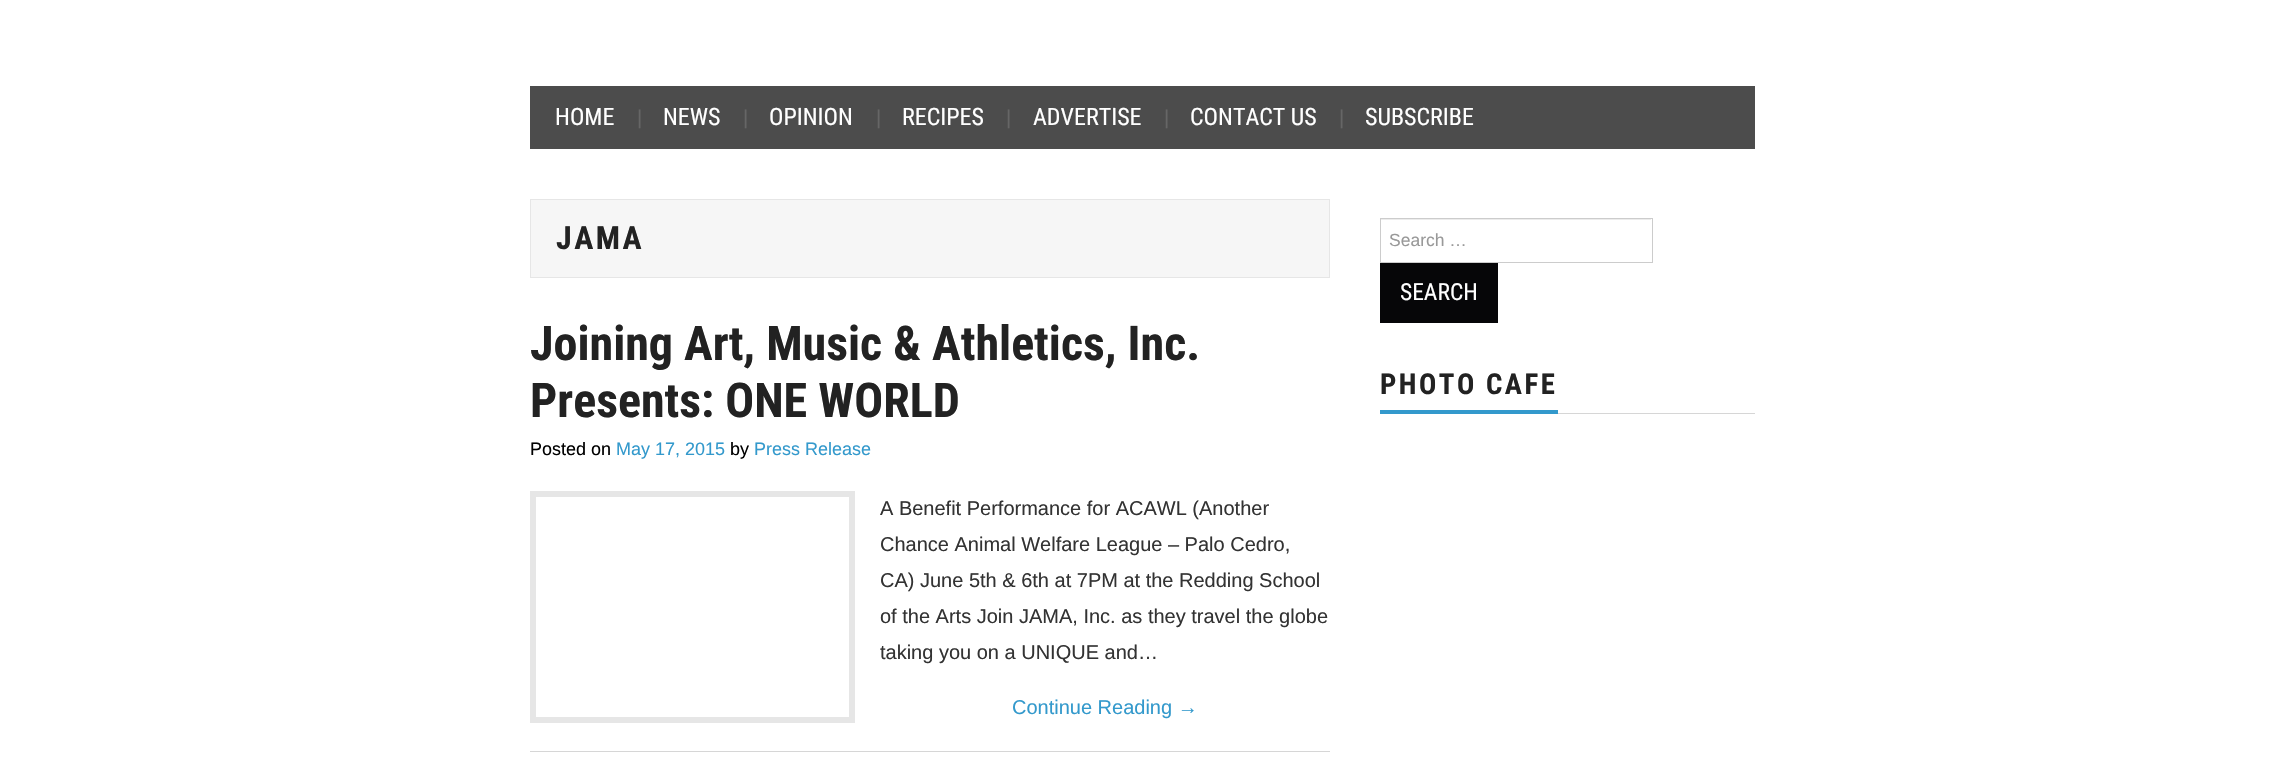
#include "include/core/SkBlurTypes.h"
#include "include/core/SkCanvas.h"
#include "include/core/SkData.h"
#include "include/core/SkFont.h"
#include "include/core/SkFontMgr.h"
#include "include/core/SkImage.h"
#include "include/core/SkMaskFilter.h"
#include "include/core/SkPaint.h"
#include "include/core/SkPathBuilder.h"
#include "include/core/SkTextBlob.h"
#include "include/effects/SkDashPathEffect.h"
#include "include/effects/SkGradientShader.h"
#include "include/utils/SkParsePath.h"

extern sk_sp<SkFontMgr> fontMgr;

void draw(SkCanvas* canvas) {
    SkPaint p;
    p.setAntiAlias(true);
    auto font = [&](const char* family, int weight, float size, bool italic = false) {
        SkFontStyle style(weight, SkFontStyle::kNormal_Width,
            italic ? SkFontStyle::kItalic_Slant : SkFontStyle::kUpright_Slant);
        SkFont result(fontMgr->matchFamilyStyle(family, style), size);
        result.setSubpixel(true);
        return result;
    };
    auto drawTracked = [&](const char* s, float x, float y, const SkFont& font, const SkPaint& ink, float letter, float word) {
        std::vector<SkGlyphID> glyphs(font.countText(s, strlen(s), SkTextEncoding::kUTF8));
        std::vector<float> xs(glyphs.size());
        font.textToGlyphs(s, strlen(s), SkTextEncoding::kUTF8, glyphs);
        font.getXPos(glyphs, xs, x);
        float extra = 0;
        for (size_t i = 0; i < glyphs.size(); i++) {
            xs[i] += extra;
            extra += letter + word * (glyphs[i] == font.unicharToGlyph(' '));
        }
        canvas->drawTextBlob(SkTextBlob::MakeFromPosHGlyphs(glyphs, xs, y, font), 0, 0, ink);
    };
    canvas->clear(0xFFFFFFFF);
    p.setColor(0xFF4C4C4C);
    canvas->drawRect(SkRect::MakeLTRB(530, 86, 1755, 149), p);
    auto font1 = font("Roboto Condensed", 400, 24);
    p.setColor(0xFFFFFFFF);
    canvas->drawString("HOME", 555, 125, font1, p);
    auto font2 = font("Liberation Sans", 400, 20);
    p.setColor(0xFF666666);
    canvas->drawString("|", 637, 124, font2, p);
    p.setColor(0xFFFFFFFF);
    canvas->drawString("NEWS", 663, 125, font1, p);
    p.setColor(0xFF666666);
    canvas->drawString("|", 743, 124, font2, p);
    p.setColor(0xFFFFFFFF);
    canvas->drawString("OPINION", 769, 125, font1, p);
    p.setColor(0xFF666666);
    canvas->drawString("|", 876, 124, font2, p);
    p.setColor(0xFFFFFFFF);
    canvas->drawString("RECIPES", 902, 125, font1, p);
    p.setColor(0xFF666666);
    canvas->drawString("|", 1006, 124, font2, p);
    p.setColor(0xFFFFFFFF);
    canvas->drawString("ADVERTISE", 1033, 125, font1, p);
    p.setColor(0xFF666666);
    canvas->drawString("|", 1164, 124, font2, p);
    p.setColor(0xFFFFFFFF);
    canvas->drawString("CONTACT US", 1190, 125, font1, p);
    p.setColor(0xFF666666);
    canvas->drawString("|", 1339, 124, font2, p);
    p.setColor(0xFFFFFFFF);
    canvas->drawString("SUBSCRIBE", 1365, 125, font1, p);
    p.setColor(0xFFF6F6F6);
    canvas->drawRect(SkRect::MakeLTRB(530.5f, 199.5f, 1329.5f, 277.5f), p);
    p.setStyle(SkPaint::kStroke_Style);
    p.setStrokeWidth(1);
    p.setColor(0xFFE6E6E6);
    canvas->drawRect(SkRect::MakeLTRB(530.5f, 199.5f, 1329.5f, 277.5f), p);
    auto font3 = font("Roboto Condensed", 700, 32);
    p.setStyle(SkPaint::kFill_Style);
    p.setColor(0xFF222222);
    drawTracked("JAMA", 556, 249, font3, p, 2.5f, 0);
    auto font4 = font("Roboto Condensed", 700, 48);
    canvas->drawString("Joining Art, Music & Athletics, Inc.", 530, 360, font4, p);
    canvas->drawString("Presents: ONE WORLD", 530, 417, font4, p);
    auto font5 = font("Liberation Sans", 400, 18);
    p.setColor(0xFF000000);
    canvas->drawString("Posted on", 530, 455, font5, p);
    p.setColor(0xFF3399CC);
    canvas->drawString("May 17, 2015", 616, 455, font5, p);
    p.setColor(0xFF000000);
    canvas->drawString("by", 730, 455, font5, p);
    p.setColor(0xFF3399CC);
    canvas->drawString("Press Release", 754, 455, font5, p);
    p.setStyle(SkPaint::kStroke_Style);
    p.setStrokeWidth(6);
    p.setColor(0xFFE6E6E6);
    canvas->drawRect(SkRect::MakeLTRB(533, 494, 852, 720), p);
    p.setStyle(SkPaint::kFill_Style);
    p.setColor(0xFF333333);
    {
        const struct { const char* s; float x, y; } items[] = {
            {"A Benefit Performance for ACAWL (Another", 880, 515},
            {"Chance Animal Welfare League – Palo Cedro,", 880, 551},
            {"CA) June 5th & 6th at 7PM at the Redding School", 880, 587},
            {"of the Arts Join JAMA, Inc. as they travel the globe", 880, 623},
            {"taking you on a UNIQUE and…", 880, 659},
        };
        for (auto [s, x, y] : items) {
            canvas->drawString(s, x, y, font2, p);
        }
    }
    p.setColor(0xFF3399CC);
    canvas->drawString("Continue Reading →", 1012, 714, font2, p);
    p.setColor(0xFFD6D6D6);
    canvas->drawRect(SkRect::MakeLTRB(530, 751, 1330, 752), p);
    p.setColor(0xFFECECEC);
    canvas->drawRect(SkRect::MakeLTRB(1381, 219, 1651, 220), p);
    p.setStyle(SkPaint::kStroke_Style);
    p.setStrokeWidth(1);
    p.setColor(0xFFCCCCCC);
    canvas->drawRect(SkRect::MakeLTRB(1380.5f, 218.5f, 1652.5f, 262.5f), p);
    auto font6 = font("Liberation Sans", 400, 17.5f);
    p.setStyle(SkPaint::kFill_Style);
    p.setColor(0xFF999999);
    canvas->drawString("Search …", 1389, 246, font6, p);
    p.setColor(0xFF060608);
    canvas->drawRect(SkRect::MakeLTRB(1380, 263, 1498, 323), p);
    auto font7 = font("Roboto Condensed", 400, 23.5f);
    p.setColor(0xFFFFFFFF);
    canvas->drawString("SEARCH", 1400, 300, font7, p);
    p.setColor(0xFFD6D6D6);
    canvas->drawRect(SkRect::MakeLTRB(1558, 413, 1755, 414), p);
    p.setColor(0xFF3399CC);
    canvas->drawRect(SkRect::MakeLTRB(1380, 410, 1558, 414), p);
    auto font8 = font("Roboto Condensed", 700, 28.75f);
    p.setColor(0xFF222222);
    drawTracked("PHOTO CAFE", 1380, 394, font8, p, 2.5f, 0);
}
